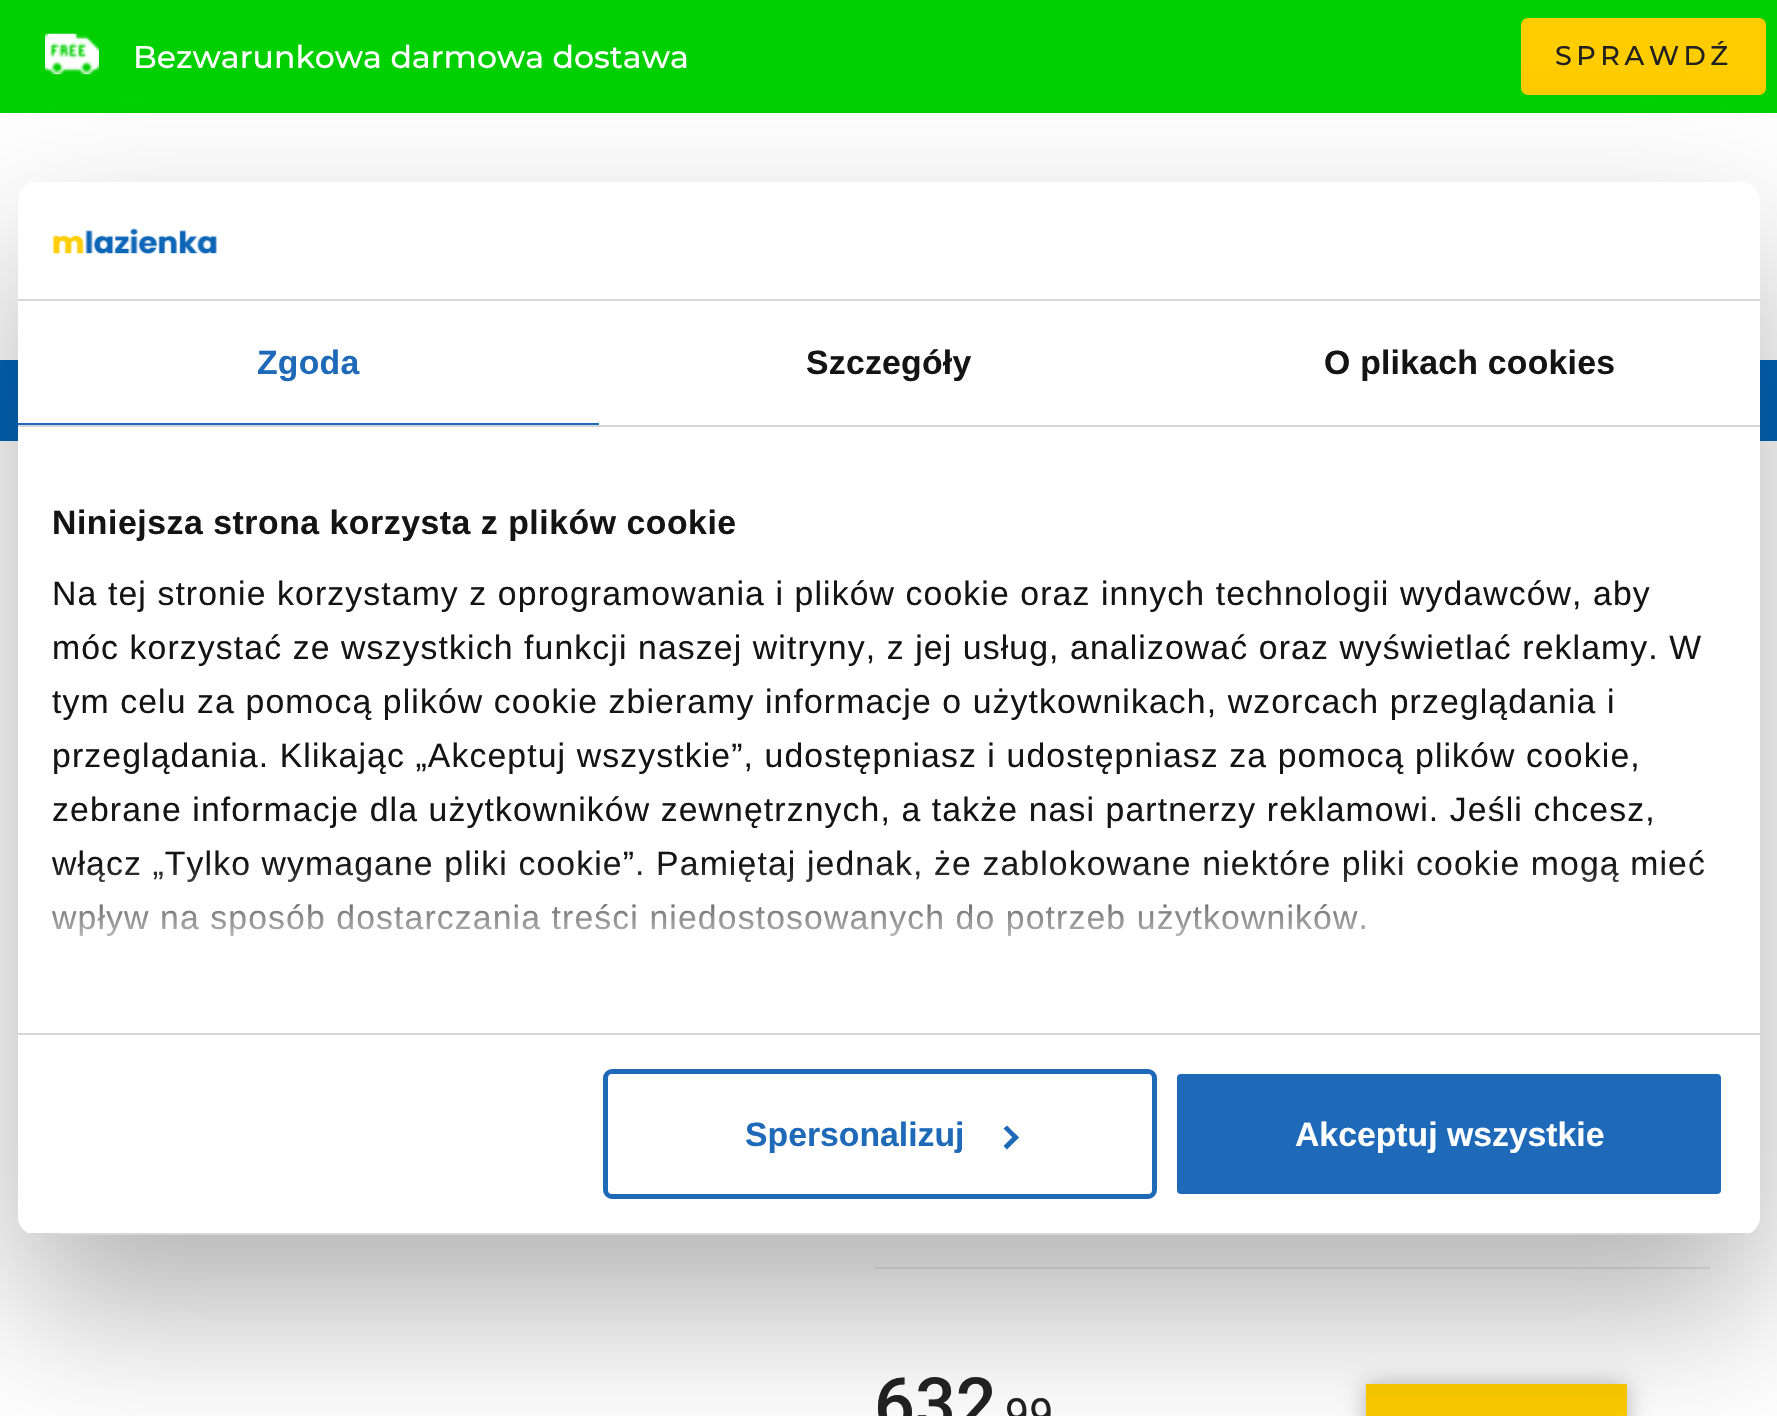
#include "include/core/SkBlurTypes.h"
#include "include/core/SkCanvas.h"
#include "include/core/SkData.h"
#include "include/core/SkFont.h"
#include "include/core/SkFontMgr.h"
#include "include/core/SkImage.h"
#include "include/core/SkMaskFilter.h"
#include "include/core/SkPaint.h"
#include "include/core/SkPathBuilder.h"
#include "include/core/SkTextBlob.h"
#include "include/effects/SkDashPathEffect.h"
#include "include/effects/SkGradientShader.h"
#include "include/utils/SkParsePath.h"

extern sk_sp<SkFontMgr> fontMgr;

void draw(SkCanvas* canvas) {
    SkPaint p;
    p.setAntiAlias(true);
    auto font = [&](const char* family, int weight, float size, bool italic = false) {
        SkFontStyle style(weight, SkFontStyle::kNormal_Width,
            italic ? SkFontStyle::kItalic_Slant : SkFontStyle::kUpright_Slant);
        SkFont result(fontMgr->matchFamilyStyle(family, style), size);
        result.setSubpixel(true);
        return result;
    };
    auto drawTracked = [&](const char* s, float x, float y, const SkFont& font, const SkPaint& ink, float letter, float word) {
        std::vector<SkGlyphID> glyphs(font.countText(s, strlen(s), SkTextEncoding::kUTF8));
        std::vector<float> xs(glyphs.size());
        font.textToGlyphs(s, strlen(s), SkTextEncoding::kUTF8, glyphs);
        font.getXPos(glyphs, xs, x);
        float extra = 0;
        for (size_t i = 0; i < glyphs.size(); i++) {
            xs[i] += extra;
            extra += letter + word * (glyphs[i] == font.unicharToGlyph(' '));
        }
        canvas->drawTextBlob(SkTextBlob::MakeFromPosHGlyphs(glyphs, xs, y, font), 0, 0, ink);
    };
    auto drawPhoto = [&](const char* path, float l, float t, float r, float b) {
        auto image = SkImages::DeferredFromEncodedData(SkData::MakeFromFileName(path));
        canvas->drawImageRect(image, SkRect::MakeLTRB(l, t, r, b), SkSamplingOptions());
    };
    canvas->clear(0xFFFFFFFF);
    p.setColor(0xFF00D000);
    canvas->drawRect(SkRect::MakeLTRB(0, 0, 1777, 113), p);
    drawPhoto("media/1.png", 45, 33, 99, 75);
    auto font1 = font("Montserrat", 500, 31.5f);
    p.setColor(0xFFFFFFFF);
    canvas->drawString("Bezwarunkowa darmowa dostawa", 133, 68, font1, p);
    p.setColor(0xFFFFCC00);
    canvas->drawRoundRect(SkRect::MakeLTRB(1521, 18, 1766, 95), 7, 7, p);
    auto font2 = font("Montserrat", 500, 27);
    p.setColor(0xFF202120);
    drawTracked("SPRAWDŹ", 1555, 65, font2, p, 4.5f, 0);
    p.setColor(0xFF0265B6);
    canvas->drawRect(SkRect::MakeLTRB(0, 360, 1777, 441), p);
    p.setColor(0xFFEBECED);
    canvas->drawRect(SkRect::MakeLTRB(875, 1267, 1710, 1269), p);
    p.setColor(0xFFBBBBBB);
    p.setMaskFilter(SkMaskFilter::MakeBlur(kNormal_SkBlurStyle, 11));
    canvas->drawRect(SkRect::MakeLTRB(1366, 1384, 1627, 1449), p);
    p.setMaskFilter(nullptr);
    p.setColor(0xFFFFCC00);
    canvas->drawRect(SkRect::MakeLTRB(1366, 1384, 1627, 1416), p);
    p.setColor(0x4D000000);
    p.setMaskFilter(SkMaskFilter::MakeBlur(kNormal_SkBlurStyle, 76.5f));
    canvas->drawRoundRect(SkRect::MakeLTRB(18, 254, 1760, 1307), 18, 18, p);
    p.setMaskFilter(nullptr);
    p.setColor(0xFFFFFFFF);
    canvas->drawRoundRect(SkRect::MakeLTRB(18, 182, 1760, 1235), 18, 18, p);
    p.setColor(0xFFD6D6D6);
    canvas->drawRect(SkRect::MakeLTRB(18, 299, 1760, 301), p);
    drawPhoto("media/2.png", 52, 228, 217, 255);
    canvas->drawRect(SkRect::MakeLTRB(18, 425, 1760, 427), p);
    p.setColor(0xFF1E69B8);
    canvas->drawRect(SkRect::MakeLTRB(18, 423, 599, 425), p);
    auto font3 = font("Liberation Sans", 700, 33.75f);
    drawTracked("Zgoda", 257, 374, font3, p, 0.25f, 0);
    p.setColor(0xFF141414);
    drawTracked("Szczegóły", 806, 374, font3, p, 0.25f, 0);
    drawTracked("O plikach cookies", 1324, 374, font3, p, 0.25f, 0);
    p.setColor(0xFFD6D6D6);
    canvas->drawRect(SkRect::MakeLTRB(18, 1033, 1760, 1035), p);
    p.setColor(0xFF141414);
    drawTracked("Niniejsza strona korzysta z plików cookie", 52, 534, font3, p, 0.55f, 0);
    auto font4 = font("Liberation Sans", 400, 33.75f);
    {
        const struct { const char* s; float x, y; } items[] = {
            {"Na tej stronie korzystamy z oprogramowania i plików cookie oraz innych technologii wydawców, aby", 52, 605},
            {"móc korzystać ze wszystkich funkcji naszej witryny, z jej usług, analizować oraz wyświetlać reklamy. W", 52, 659},
            {"tym celu za pomocą plików cookie zbieramy informacje o użytkownikach, wzorcach przeglądania i", 52, 713},
            {"przeglądania. Klikając „Akceptuj wszystkie”, udostępniasz i udostępniasz za pomocą plików cookie,", 52, 767},
            {"zebrane informacje dla użytkowników zewnętrznych, a także nasi partnerzy reklamowi. Jeśli chcesz,", 52, 821},
            {"włącz „Tylko wymagane pliki cookie”. Pamiętaj jednak, że zablokowane niektóre pliki cookie mogą mieć", 52, 875},
            {"wpływ na sposób dostarczania treści niedostosowanych do potrzeb użytkowników.", 52, 929},
        };
        for (auto [s, x, y] : items) {
            drawTracked(s, x, y, font4, p, 1.12f, 0);
        }
    }
    {
        const SkColor colors[] = {0xFFFFFFFF, 0xCCFFFFFF, 0x00FFFFFF};
        const float stops[] = {0, 0.5f, 1};
        const SkPoint ends[] = {{874, 1032}, {874, 863}};
        p.setShader(SkGradientShader::MakeLinear(ends, colors, stops, 3, SkTileMode::kClamp));
        p.setAlpha(255);
    }
    canvas->drawRect(SkRect::MakeLTRB(51, 865, 1704, 936), p);
    canvas->save();
    canvas->clipPath(SkPathBuilder().moveTo(36, 182).lineTo(1742, 182).cubicTo(1752, 182, 1760, 190, 1760, 200).lineTo(1760, 1217).cubicTo(1760, 1227, 1752, 1235, 1742, 1235).lineTo(36, 1235).cubicTo(26, 1235, 18, 1227, 18, 1217).lineTo(18, 200).cubicTo(18, 190, 26, 182, 36, 182).close().detach(), true);
    p.setShader(nullptr);
    p.setColor(0xFFD6D6D6);
    canvas->drawRect(SkRect::MakeLTRB(28, 1233, 1750, 1235), p);
    canvas->restore();
    p.setStyle(SkPaint::kStroke_Style);
    p.setStrokeWidth(5);
    p.setColor(0xFF1E69B8);
    canvas->drawRoundRect(SkRect::MakeLTRB(605.5f, 1071.5f, 1154.5f, 1196.5f), 6.5f, 6.5f, p);
    p.setStyle(SkPaint::kFill_Style);
    canvas->drawString("Spersonalizuj", 745, 1146, font3, p);
    canvas->drawPath(SkPathBuilder().moveTo(1007, 1125.5f).lineTo(1019, 1137.5f).lineTo(1015.5f, 1140.5f).lineTo(1003.5f, 1128.5f).close().detach(), p);
    canvas->drawPath(SkPathBuilder().moveTo(1015.5f, 1134).lineTo(1019, 1137.5f).lineTo(1007, 1149.5f).lineTo(1003.5f, 1146).close().detach(), p);
    canvas->drawRoundRect(SkRect::MakeLTRB(1174.5f, 1071.5f, 1723.5f, 1196.5f), 6.5f, 6.5f, p);
    p.setStyle(SkPaint::kStroke_Style);
    p.setColor(0xFFFFFFFF);
    canvas->drawRoundRect(SkRect::MakeLTRB(1174.5f, 1071.5f, 1723.5f, 1196.5f), 6.5f, 6.5f, p);
    p.setStyle(SkPaint::kFill_Style);
    canvas->drawString("Akceptuj wszystkie", 1295, 1146, font3, p);
    auto font5 = font("Roboto", 500, 72);
    p.setColor(0xFF202120);
    canvas->drawString("632", 874, 1429, font5, p);
    auto font6 = font("Roboto", 400, 43);
    canvas->drawString("99", 1005, 1429, font6, p);
}
